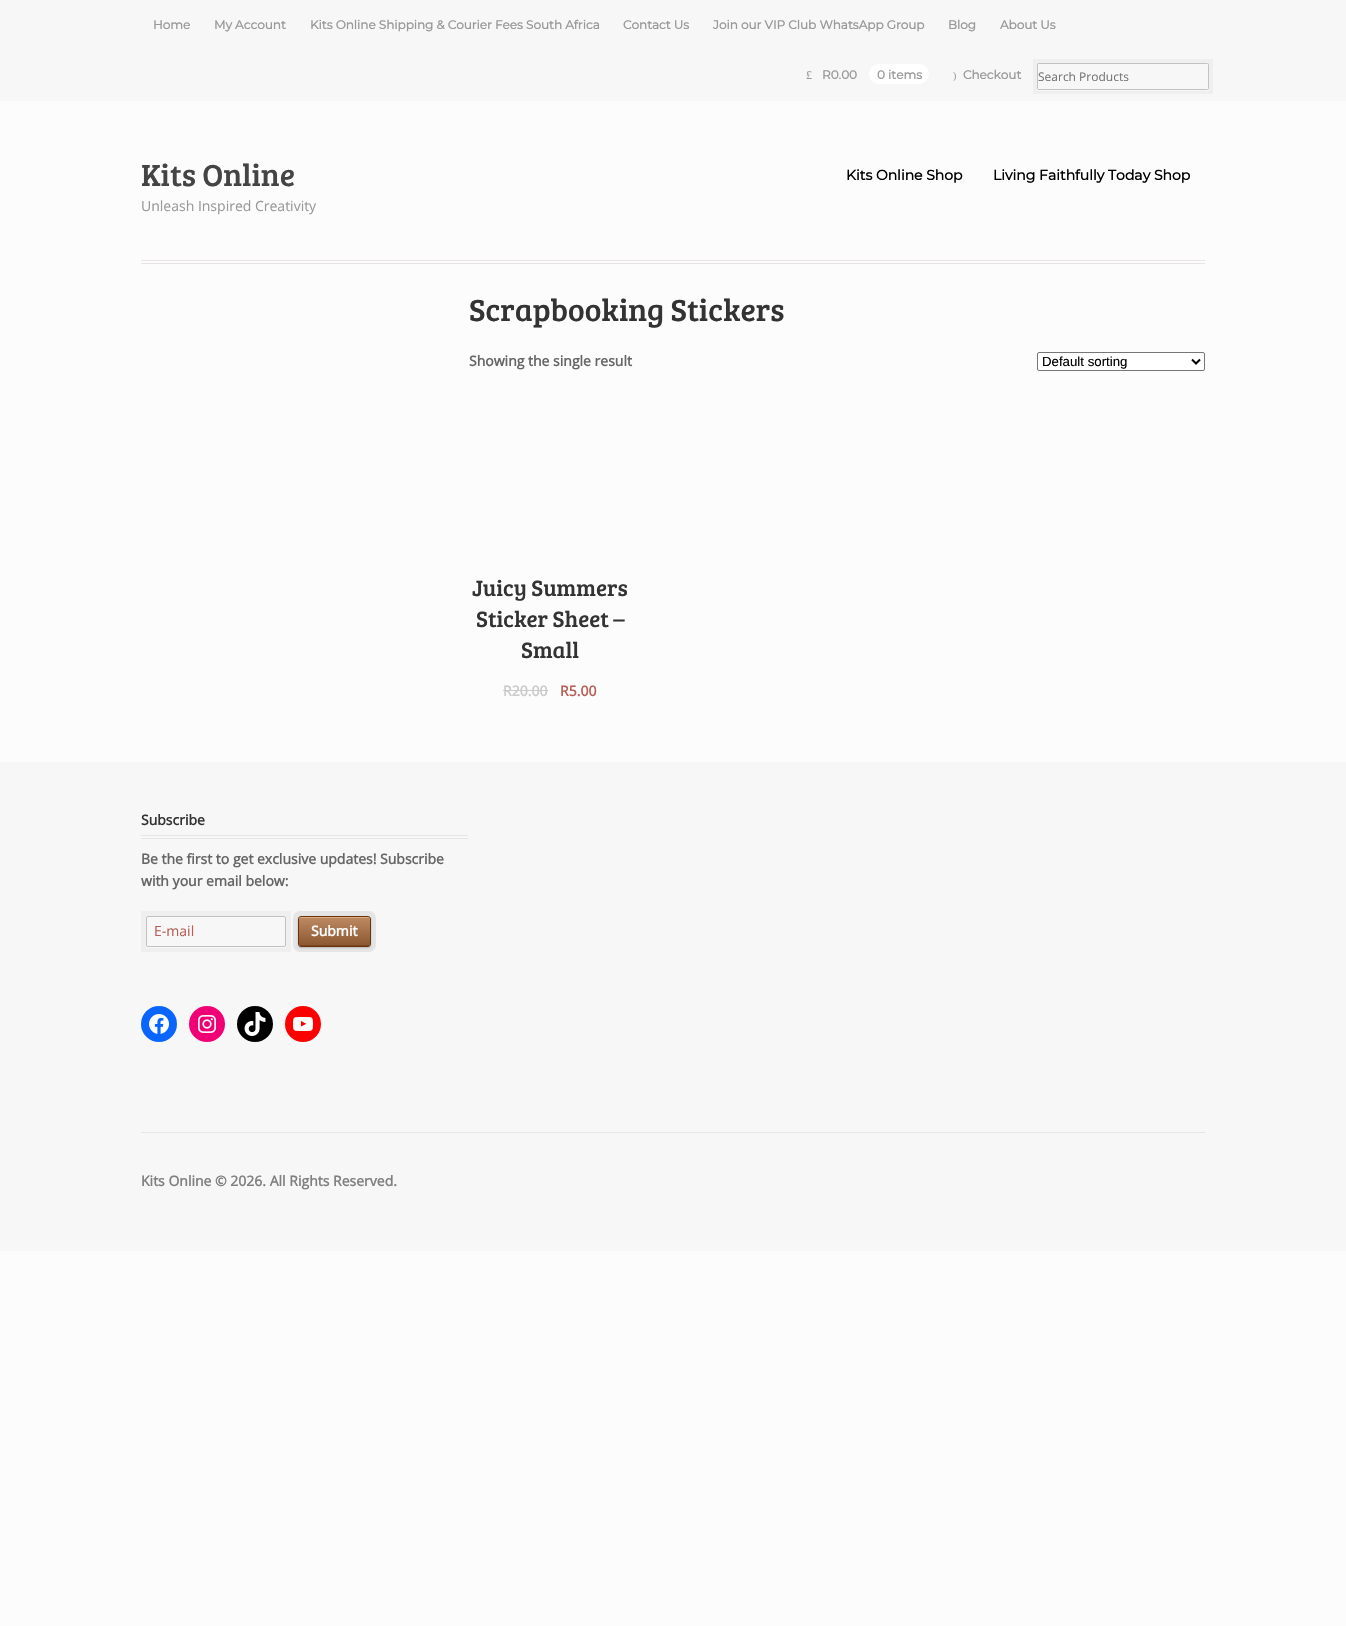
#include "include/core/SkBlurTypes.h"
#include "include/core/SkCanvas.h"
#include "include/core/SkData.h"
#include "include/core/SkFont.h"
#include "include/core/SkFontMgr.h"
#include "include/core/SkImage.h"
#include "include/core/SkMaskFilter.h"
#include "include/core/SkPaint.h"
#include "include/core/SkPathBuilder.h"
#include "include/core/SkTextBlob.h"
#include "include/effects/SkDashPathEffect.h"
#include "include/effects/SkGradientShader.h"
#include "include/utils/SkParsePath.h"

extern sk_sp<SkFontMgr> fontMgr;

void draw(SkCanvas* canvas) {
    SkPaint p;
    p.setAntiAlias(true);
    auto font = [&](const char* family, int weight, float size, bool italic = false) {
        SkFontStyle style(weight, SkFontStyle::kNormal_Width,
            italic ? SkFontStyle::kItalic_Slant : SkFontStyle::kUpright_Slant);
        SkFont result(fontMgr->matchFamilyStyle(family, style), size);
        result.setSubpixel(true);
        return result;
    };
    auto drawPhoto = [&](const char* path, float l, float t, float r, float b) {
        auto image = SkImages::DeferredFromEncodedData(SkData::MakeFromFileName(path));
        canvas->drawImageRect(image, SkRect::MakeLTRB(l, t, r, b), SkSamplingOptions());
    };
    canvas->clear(0xFFFCFCFC);
    p.setColor(0xFFF7F7F7);
    canvas->drawRect(SkRect::MakeLTRB(0, 0, 1346, 101), p);
    auto font1 = font("Montserrat", 700, 12);
    p.setColor(0xFF999999);
    {
        const struct { const char* s; float x, y; } items[] = {
            {"Home", 153, 29},
            {"My Account", 214, 29},
            {"Kits Online Shipping & Courier Fees South Africa", 310, 29},
            {"Contact Us", 623, 29},
            {"Join our VIP Club WhatsApp Group", 713, 29},
            {"Blog", 948, 29},
            {"About Us", 1000, 29},
        };
        for (auto [s, x, y] : items) {
            canvas->drawString(s, x, y, font1, p);
        }
    }
    auto font2 = font("Liberation Serif", 400, 12);
    canvas->drawString("£", 806, 79, font2, p);
    canvas->drawString("R0.00", 822, 79, font1, p);
    p.setColor(0xFFFFFFFF);
    canvas->drawRoundRect(SkRect::MakeLTRB(869, 64, 929, 84), 10, 10, p);
    p.setColor(0xFF999999);
    canvas->drawString("0 items", 877, 79, font1, p);
    auto font3 = font("Liberation Serif", 400, 10);
    canvas->drawString(")", 953, 79, font3, p);
    canvas->drawString("Checkout", 963, 79, font1, p);
    p.setColor(0xFFFFFFFF);
    canvas->drawPath(SkPathBuilder().moveTo(1037, 89).lineTo(1037, 90).cubicTo(1037, 90, 1038, 91, 1038, 91).lineTo(1208, 91).cubicTo(1208, 91, 1209, 90, 1209, 90).lineTo(1209, 89).cubicTo(1209, 89, 1208, 90, 1208, 90).lineTo(1038, 90).cubicTo(1038, 90, 1037, 89, 1037, 89).close().detach(), p);
    p.setStyle(SkPaint::kStroke_Style);
    p.setStrokeWidth(4);
    p.setColor(0x08000000);
    canvas->drawRect(SkRect::MakeLTRB(1035, 61, 1211, 92), p);
    p.setStrokeWidth(1);
    p.setColor(0xFFC2C2C2);
    canvas->drawRoundRect(SkRect::MakeLTRB(1037.5f, 63.5f, 1208.5f, 89.5f), 1, 1, p);
    auto font4 = font("Open Sans", 400, 12);
    p.setStyle(SkPaint::kFill_Style);
    p.setColor(0xFF757575);
    canvas->drawString("Search Products", 1038, 81, font4, p);
    p.setColor(0xFFE8E4E3);
    canvas->drawRect(SkRect::MakeLTRB(141, 260, 1205, 261), p);
    canvas->drawRect(SkRect::MakeLTRB(141, 263, 1205, 264), p);
    auto font5 = font("Bree Serif", 400, 31.5f);
    p.setColor(0xFF444444);
    canvas->drawString("Kits Online", 141, 186, font5, p);
    auto font6 = font("Open Sans", 400, 14);
    p.setColor(0xFF999999);
    canvas->drawString("Unleash Inspired Creativity", 141, 211, font6, p);
    auto font7 = font("Montserrat", 700, 14);
    p.setColor(0xFF000000);
    canvas->drawString("Kits Online Shop", 846, 180, font7, p);
    canvas->drawString("Living Faithfully Today Shop", 993, 180, font7, p);
    p.setColor(0xFF333333);
    canvas->drawString("Scrapbooking Stickers", 469, 321, font5, p);
    auto font8 = font("Open Sans", 700, 14);
    p.setColor(0xFF666666);
    canvas->drawString("Showing the single result", 469, 366, font8, p);
    p.setColor(0xFFFFFFFF);
    canvas->drawRoundRect(SkRect::MakeLTRB(1037.5f, 352.5f, 1204.5f, 370.5f), 1.5f, 1.5f, p);
    p.setStyle(SkPaint::kStroke_Style);
    p.setColor(0xFF767676);
    canvas->drawRoundRect(SkRect::MakeLTRB(1037.5f, 352.5f, 1204.5f, 370.5f), 1.5f, 1.5f, p);
    p.setStrokeWidth(2);
    p.setColor(0xFF000000);
    canvas->drawPath(SkPathBuilder().moveTo(1192, 359.5f).lineTo(1196, 363.5f).lineTo(1200, 359.5f).detach(), p);
    auto font9 = font("Liberation Sans", 400, 13.25f);
    p.setStyle(SkPaint::kFill_Style);
    canvas->drawString("Default sorting", 1042, 366, font9, p);
    auto font10 = font("Bree Serif", 400, 22.75f);
    p.setColor(0xFF333333);
    {
        const struct { const char* s; float x, y; } items[] = {
            {"Juicy Summers", 472, 596},
            {"Sticker Sheet –", 476, 627},
            {"Small", 521, 658},
        };
        for (auto [s, x, y] : items) {
            canvas->drawString(s, x, y, font10, p);
        }
    }
    p.setColor(0xFFCBCBCB);
    canvas->drawString("R20.00", 503, 696, font8, p);
    canvas->drawRect(SkRect::MakeLTRB(503, 690, 548, 691), p);
    p.setColor(0xFFB85F56);
    canvas->drawString("R5.00", 560, 696, font8, p);
    {
        const struct { float l, t, r, b; SkColor color; } items[] = {
            {0, 762, 1346, 1251, 0xFFF7F7F7},
            {141, 835, 468, 836, 0xFFE6E6E6},
            {141, 838, 468, 839, 0xFFE6E6E6},
        };
        for (auto [l, t, r, b, color] : items) {
            p.setColor(color);
            canvas->drawRect(SkRect::MakeLTRB(l, t, r, b), p);
        }
    }
    p.setColor(0xFF333333);
    canvas->drawString("Subscribe", 141, 825, font8, p);
    p.setColor(0xFF666666);
    canvas->drawString("Be the first to get exclusive updates! Subscribe", 141, 864, font8, p);
    canvas->drawString("with your email below:", 141, 886, font8, p);
    p.setColor(0xFFFFFFFF);
    canvas->drawPath(SkPathBuilder().moveTo(146, 945).cubicTo(146, 947, 146, 948, 148, 948).lineTo(284, 948).cubicTo(286, 948, 286, 947, 286, 945).cubicTo(286, 946, 285, 947, 284, 947).lineTo(148, 947).cubicTo(147, 947, 146, 946, 146, 945).close().detach(), p);
    p.setStyle(SkPaint::kStroke_Style);
    p.setStrokeWidth(5);
    p.setColor(0x08000000);
    canvas->drawRect(SkRect::MakeLTRB(143.5f, 913.5f, 288.5f, 949.5f), p);
    p.setStrokeWidth(1);
    p.setColor(0xFFC2C2C2);
    canvas->drawRoundRect(SkRect::MakeLTRB(146.5f, 916.5f, 285.5f, 946.5f), 1.5f, 1.5f, p);
    p.setStyle(SkPaint::kFill_Style);
    p.setColor(0xFFB85F56);
    canvas->drawString("E-mail", 154, 936, font6, p);
    p.setColor(0x33000000);
    p.setMaskFilter(SkMaskFilter::MakeBlur(kNormal_SkBlurStyle, 1));
    canvas->drawRoundRect(SkRect::MakeLTRB(298, 917, 371, 948), 3, 3, p);
    p.setMaskFilter(nullptr);
    p.setStyle(SkPaint::kStroke_Style);
    p.setStrokeWidth(5);
    p.setColor(0x12000000);
    canvas->drawRoundRect(SkRect::MakeLTRB(295.5f, 913.5f, 373.5f, 949.5f), 4.5f, 4.5f, p);
    p.setStyle(SkPaint::kFill_Style);
    {
        const SkColor colors[] = {0xFFBD8A64, 0xFF8A5731};
        const float stops[] = {0, 1};
        const SkPoint ends[] = {{335, 917}, {335, 946}};
        p.setShader(SkGradientShader::MakeLinear(ends, colors, stops, 2, SkTileMode::kClamp));
        p.setAlpha(255);
    }
    canvas->drawRoundRect(SkRect::MakeLTRB(299, 917, 370, 946), 2, 2, p);
    p.setShader(nullptr);
    p.setColor(0xFF794620);
    canvas->drawPath(SkPathBuilder().moveTo(299, 943).cubicTo(299, 949, 309, 946, 312, 946).lineTo(357, 946).cubicTo(360, 946, 370, 949, 370, 943).cubicTo(370, 944, 369, 945, 368, 945).lineTo(301, 945).cubicTo(300, 945, 299, 944, 299, 943).close().detach(), p);
    p.setColor(0xFFDFAC86);
    canvas->drawPath(SkPathBuilder().moveTo(301, 918).lineTo(368, 918).cubicTo(369, 918, 370, 919, 370, 920).cubicTo(370, 914, 360, 917, 357, 917).lineTo(312, 917).cubicTo(309, 917, 299, 914, 299, 920).cubicTo(299, 919, 300, 918, 301, 918).close().detach(), p);
    p.setStyle(SkPaint::kStroke_Style);
    p.setStrokeWidth(1);
    p.setColor(0xFF68350F);
    canvas->drawRoundRect(SkRect::MakeLTRB(298.5f, 916.5f, 370.5f, 946.5f), 2.5f, 2.5f, p);
    p.setStyle(SkPaint::kFill_Style);
    p.setColor(0xFFFFFFFF);
    canvas->drawString("Submit", 311, 936, font8, p);
    p.setColor(0xFF0866FF);
    canvas->drawCircle(159, 1024, 18, p);
    drawPhoto("media/1.png", 149, 1014, 169, 1034);
    p.setColor(0xFFF00075);
    canvas->drawCircle(207, 1024, 18, p);
    drawPhoto("media/2.png", 198, 1015, 216, 1033);
    p.setColor(0xFF000000);
    canvas->drawCircle(255, 1024, 18, p);
    drawPhoto("media/3.png", 244, 1012, 266, 1036);
    p.setColor(0xFFFF0000);
    canvas->drawCircle(303, 1024, 18, p);
    drawPhoto("media/4.png", 293, 1017, 313, 1031);
    p.setColor(0xFFE6E6E6);
    canvas->drawRect(SkRect::MakeLTRB(141, 1132, 1205, 1133), p);
    p.setColor(0xFF808080);
    canvas->drawString("Kits Online © 2026. All Rights Reserved.", 141, 1186, font8, p);
}
